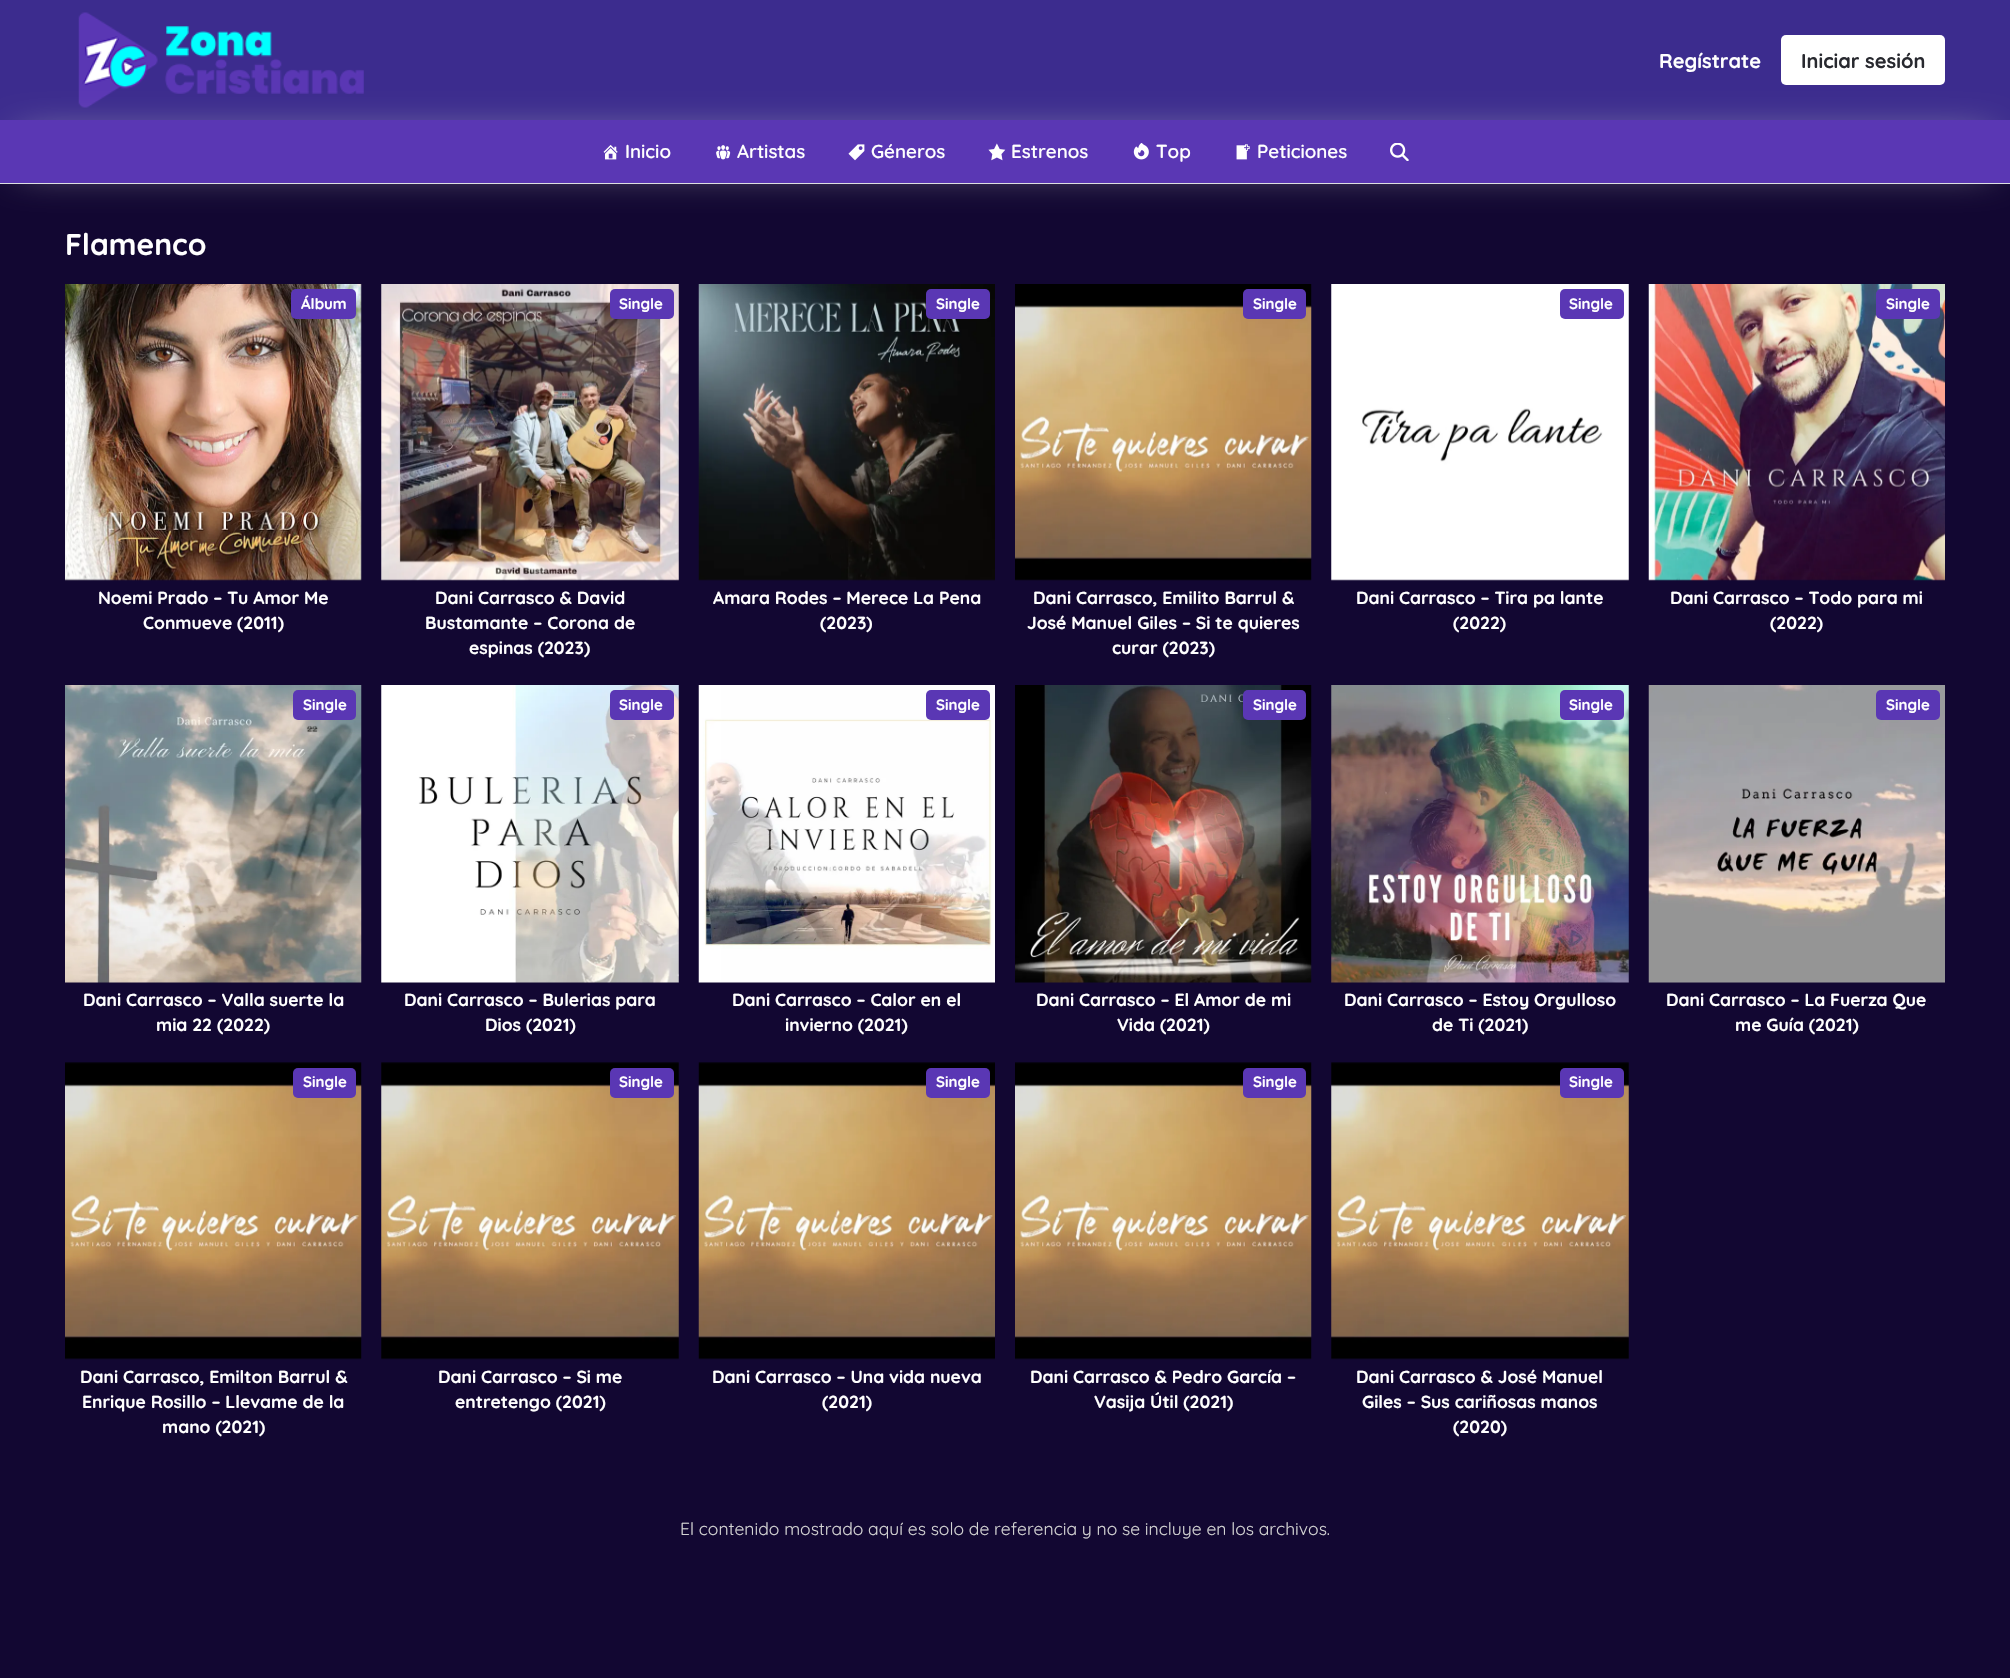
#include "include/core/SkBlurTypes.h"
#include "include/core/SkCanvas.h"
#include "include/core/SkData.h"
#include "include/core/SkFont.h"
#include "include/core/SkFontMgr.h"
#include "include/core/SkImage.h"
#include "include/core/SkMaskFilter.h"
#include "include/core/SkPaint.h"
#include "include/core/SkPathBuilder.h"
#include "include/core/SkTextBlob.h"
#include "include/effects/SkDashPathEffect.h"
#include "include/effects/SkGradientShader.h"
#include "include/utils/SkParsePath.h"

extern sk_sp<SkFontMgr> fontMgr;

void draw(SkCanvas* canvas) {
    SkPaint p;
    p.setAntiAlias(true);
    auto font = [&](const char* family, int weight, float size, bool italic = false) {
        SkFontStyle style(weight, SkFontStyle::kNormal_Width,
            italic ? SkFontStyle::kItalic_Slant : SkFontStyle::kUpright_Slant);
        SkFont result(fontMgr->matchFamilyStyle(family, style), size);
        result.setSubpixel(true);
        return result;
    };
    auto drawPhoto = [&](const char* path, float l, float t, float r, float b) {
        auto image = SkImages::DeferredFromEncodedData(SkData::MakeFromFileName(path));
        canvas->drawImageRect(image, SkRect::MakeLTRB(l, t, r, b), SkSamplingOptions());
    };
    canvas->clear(0xFF120732);
    p.setColor(0xFF3C2C8E);
    canvas->drawRect(SkRect::MakeLTRB(0, 0, 2010, 120), p);
    drawPhoto("media/1.png", 78, 12, 364, 108);
    auto font1 = font("Quicksand", 700, 20);
    p.setColor(0xFFFFFFFF);
    canvas->drawString("Regístrate", 1659, 68, font1, p);
    canvas->drawRoundRect(SkRect::MakeLTRB(1781, 35, 1945, 85), 5, 5, p);
    p.setColor(0xFF28292F);
    canvas->drawString("Iniciar sesión", 1801, 68, font1, p);
    p.setColor(0xFFBABCC1);
    p.setMaskFilter(SkMaskFilter::MakeBlur(kNormal_SkBlurStyle, 20));
    canvas->drawRect(SkRect::MakeLTRB(20, 140, 1990, 164), p);
    p.setMaskFilter(nullptr);
    p.setColor(0xFF5A37B4);
    canvas->drawRect(SkRect::MakeLTRB(0, 120, 2010, 183), p);
    drawPhoto("media/2.png", 603, 144, 618, 160);
    auto font2 = font("Quicksand", 600, 18.75f);
    p.setColor(0xFFFFFFFF);
    canvas->drawString("Inicio", 625, 158, font2, p);
    drawPhoto("media/3.png", 716, 145, 731, 160);
    canvas->drawString("Artistas", 737, 158, font2, p);
    drawPhoto("media/4.png", 848, 144, 865, 161);
    canvas->drawString("Géneros", 871, 158, font2, p);
    drawPhoto("media/5.png", 988, 143, 1006, 161);
    canvas->drawString("Estrenos", 1011, 158, font2, p);
    drawPhoto("media/6.png", 1133, 143, 1149, 160);
    canvas->drawString("Top", 1156, 158, font2, p);
    drawPhoto("media/7.png", 1236, 144, 1250, 160);
    canvas->drawString("Peticiones", 1257, 158, font2, p);
    drawPhoto("media/8.png", 1390, 143, 1409, 161);
    p.setColor(0xFFDDDFE2);
    canvas->drawRect(SkRect::MakeLTRB(0, 183, 2010, 184), p);
    auto font3 = font("Quicksand", 700, 30);
    p.setColor(0xFFFFFFFF);
    canvas->drawString("Flamenco", 65, 255, font3, p);
    drawPhoto("media/9.png", 65, 284, 362, 581);
    p.setColor(0xFF5A37B4);
    canvas->drawRoundRect(SkRect::MakeLTRB(291, 289, 356, 319), 5, 5, p);
    auto font4 = font("Quicksand", 700, 15);
    p.setColor(0xFFFFFFFF);
    canvas->drawString("Álbum", 301, 309, font4, p);
    auto font5 = font("Quicksand", 700, 17.5f);
    canvas->drawString("Noemi Prado – Tu Amor Me", 98, 604, font5, p);
    canvas->drawString("Conmueve (2011)", 143, 629, font5, p);
    drawPhoto("media/10.png", 381, 284, 679, 581);
    p.setColor(0xFF5A37B4);
    canvas->drawRoundRect(SkRect::MakeLTRB(610, 289, 674, 319), 5, 5, p);
    p.setColor(0xFFFFFFFF);
    canvas->drawString("Single", 619, 309, font4, p);
    {
        const struct { const char* s; float x, y; } items[] = {
            {"Dani Carrasco & David", 435, 604},
            {"Bustamante – Corona de", 425, 629},
            {"espinas (2023)", 469, 654},
        };
        for (auto [s, x, y] : items) {
            canvas->drawString(s, x, y, font5, p);
        }
    }
    drawPhoto("media/11.png", 698, 284, 995, 581);
    p.setColor(0xFF5A37B4);
    canvas->drawRoundRect(SkRect::MakeLTRB(926, 289, 990, 319), 5, 5, p);
    p.setColor(0xFFFFFFFF);
    canvas->drawString("Single", 936, 309, font4, p);
    canvas->drawString("Amara Rodes – Merece La Pena", 713, 604, font5, p);
    canvas->drawString("(2023)", 820, 629, font5, p);
    drawPhoto("media/12.png", 1015, 284, 1312, 581);
    p.setColor(0xFF5A37B4);
    canvas->drawRoundRect(SkRect::MakeLTRB(1243, 289, 1306, 319), 5, 5, p);
    p.setColor(0xFFFFFFFF);
    canvas->drawString("Single", 1253, 309, font4, p);
    {
        const struct { const char* s; float x, y; } items[] = {
            {"Dani Carrasco, Emilito Barrul &", 1033, 604},
            {"José Manuel Giles – Si te quieres", 1027, 629},
            {"curar (2023)", 1112, 654},
        };
        for (auto [s, x, y] : items) {
            canvas->drawString(s, x, y, font5, p);
        }
    }
    drawPhoto("media/13.png", 1331, 284, 1629, 581);
    p.setColor(0xFF5A37B4);
    canvas->drawRoundRect(SkRect::MakeLTRB(1560, 289, 1624, 319), 5, 5, p);
    p.setColor(0xFFFFFFFF);
    canvas->drawString("Single", 1569, 309, font4, p);
    canvas->drawString("Dani Carrasco – Tira pa lante", 1356, 604, font5, p);
    canvas->drawString("(2022)", 1453, 629, font5, p);
    drawPhoto("media/14.png", 1648, 284, 1945, 581);
    p.setColor(0xFF5A37B4);
    canvas->drawRoundRect(SkRect::MakeLTRB(1876, 289, 1940, 319), 5, 5, p);
    p.setColor(0xFFFFFFFF);
    canvas->drawString("Single", 1886, 309, font4, p);
    canvas->drawString("Dani Carrasco – Todo para mi", 1670, 604, font5, p);
    canvas->drawString("(2022)", 1770, 629, font5, p);
    drawPhoto("media/15.png", 65, 685, 362, 983);
    p.setColor(0xFF5A37B4);
    canvas->drawRoundRect(SkRect::MakeLTRB(293, 690, 356, 720), 5, 5, p);
    p.setColor(0xFFFFFFFF);
    canvas->drawString("Single", 303, 710, font4, p);
    canvas->drawString("Dani Carrasco – Valla suerte la", 83, 1006, font5, p);
    canvas->drawString("mia 22 (2022)", 156, 1031, font5, p);
    drawPhoto("media/16.png", 381, 685, 679, 983);
    p.setColor(0xFF5A37B4);
    canvas->drawRoundRect(SkRect::MakeLTRB(610, 690, 674, 720), 5, 5, p);
    p.setColor(0xFFFFFFFF);
    canvas->drawString("Single", 619, 710, font4, p);
    canvas->drawString("Dani Carrasco – Bulerias para", 404, 1006, font5, p);
    canvas->drawString("Dios (2021)", 485, 1031, font5, p);
    drawPhoto("media/17.png", 698, 685, 995, 983);
    p.setColor(0xFF5A37B4);
    canvas->drawRoundRect(SkRect::MakeLTRB(926, 690, 990, 720), 5, 5, p);
    p.setColor(0xFFFFFFFF);
    canvas->drawString("Single", 936, 710, font4, p);
    canvas->drawString("Dani Carrasco – Calor en el", 732, 1006, font5, p);
    canvas->drawString("invierno (2021)", 785, 1031, font5, p);
    drawPhoto("media/18.png", 1015, 685, 1312, 983);
    p.setColor(0xFF5A37B4);
    canvas->drawRoundRect(SkRect::MakeLTRB(1243, 690, 1306, 720), 5, 5, p);
    p.setColor(0xFFFFFFFF);
    canvas->drawString("Single", 1253, 710, font4, p);
    canvas->drawString("Dani Carrasco – El Amor de mi", 1036, 1006, font5, p);
    canvas->drawString("Vida (2021)", 1117, 1031, font5, p);
    drawPhoto("media/19.png", 1331, 685, 1629, 983);
    p.setColor(0xFF5A37B4);
    canvas->drawRoundRect(SkRect::MakeLTRB(1560, 690, 1624, 720), 5, 5, p);
    p.setColor(0xFFFFFFFF);
    canvas->drawString("Single", 1569, 710, font4, p);
    canvas->drawString("Dani Carrasco – Estoy Orgulloso", 1344, 1006, font5, p);
    canvas->drawString("de Ti (2021)", 1432, 1031, font5, p);
    drawPhoto("media/20.png", 1648, 685, 1945, 983);
    p.setColor(0xFF5A37B4);
    canvas->drawRoundRect(SkRect::MakeLTRB(1876, 690, 1940, 720), 5, 5, p);
    p.setColor(0xFFFFFFFF);
    canvas->drawString("Single", 1886, 710, font4, p);
    canvas->drawString("Dani Carrasco – La Fuerza Que", 1666, 1006, font5, p);
    canvas->drawString("me Guía (2021)", 1735, 1031, font5, p);
    drawPhoto("media/21.png", 65, 1062, 362, 1360);
    p.setColor(0xFF5A37B4);
    canvas->drawRoundRect(SkRect::MakeLTRB(293, 1068, 356, 1098), 5, 5, p);
    p.setColor(0xFFFFFFFF);
    canvas->drawString("Single", 303, 1087, font4, p);
    {
        const struct { const char* s; float x, y; } items[] = {
            {"Dani Carrasco, Emilton Barrul &", 80, 1383},
            {"Enrique Rosillo – Llevame de la", 82, 1408},
            {"mano (2021)", 162, 1433},
        };
        for (auto [s, x, y] : items) {
            canvas->drawString(s, x, y, font5, p);
        }
    }
    drawPhoto("media/22.png", 381, 1062, 679, 1360);
    p.setColor(0xFF5A37B4);
    canvas->drawRoundRect(SkRect::MakeLTRB(610, 1068, 674, 1098), 5, 5, p);
    p.setColor(0xFFFFFFFF);
    canvas->drawString("Single", 619, 1087, font4, p);
    canvas->drawString("Dani Carrasco – Si me", 438, 1383, font5, p);
    canvas->drawString("entretengo (2021)", 455, 1408, font5, p);
    drawPhoto("media/23.png", 698, 1062, 995, 1360);
    p.setColor(0xFF5A37B4);
    canvas->drawRoundRect(SkRect::MakeLTRB(926, 1068, 990, 1098), 5, 5, p);
    p.setColor(0xFFFFFFFF);
    canvas->drawString("Single", 936, 1087, font4, p);
    canvas->drawString("Dani Carrasco – Una vida nueva", 712, 1383, font5, p);
    canvas->drawString("(2021)", 822, 1408, font5, p);
    drawPhoto("media/24.png", 1015, 1062, 1312, 1360);
    p.setColor(0xFF5A37B4);
    canvas->drawRoundRect(SkRect::MakeLTRB(1243, 1068, 1306, 1098), 5, 5, p);
    p.setColor(0xFFFFFFFF);
    canvas->drawString("Single", 1253, 1087, font4, p);
    canvas->drawString("Dani Carrasco & Pedro García –", 1030, 1383, font5, p);
    canvas->drawString("Vasija Útil (2021)", 1094, 1408, font5, p);
    drawPhoto("media/22.png", 1331, 1062, 1629, 1360);
    p.setColor(0xFF5A37B4);
    canvas->drawRoundRect(SkRect::MakeLTRB(1560, 1068, 1624, 1098), 5, 5, p);
    p.setColor(0xFFFFFFFF);
    canvas->drawString("Single", 1569, 1087, font4, p);
    {
        const struct { const char* s; float x, y; } items[] = {
            {"Dani Carrasco & José Manuel", 1356, 1383},
            {"Giles – Sus cariñosas manos", 1362, 1408},
            {"(2020)", 1453, 1433},
        };
        for (auto [s, x, y] : items) {
            canvas->drawString(s, x, y, font5, p);
        }
    }
    auto font6 = font("Quicksand", 400, 17.5f);
    p.setColor(0xFFD3D3D3);
    canvas->drawString("El contenido mostrado aquí es solo de referencia y no se incluye en los archivos.", 680, 1535, font6, p);
}
